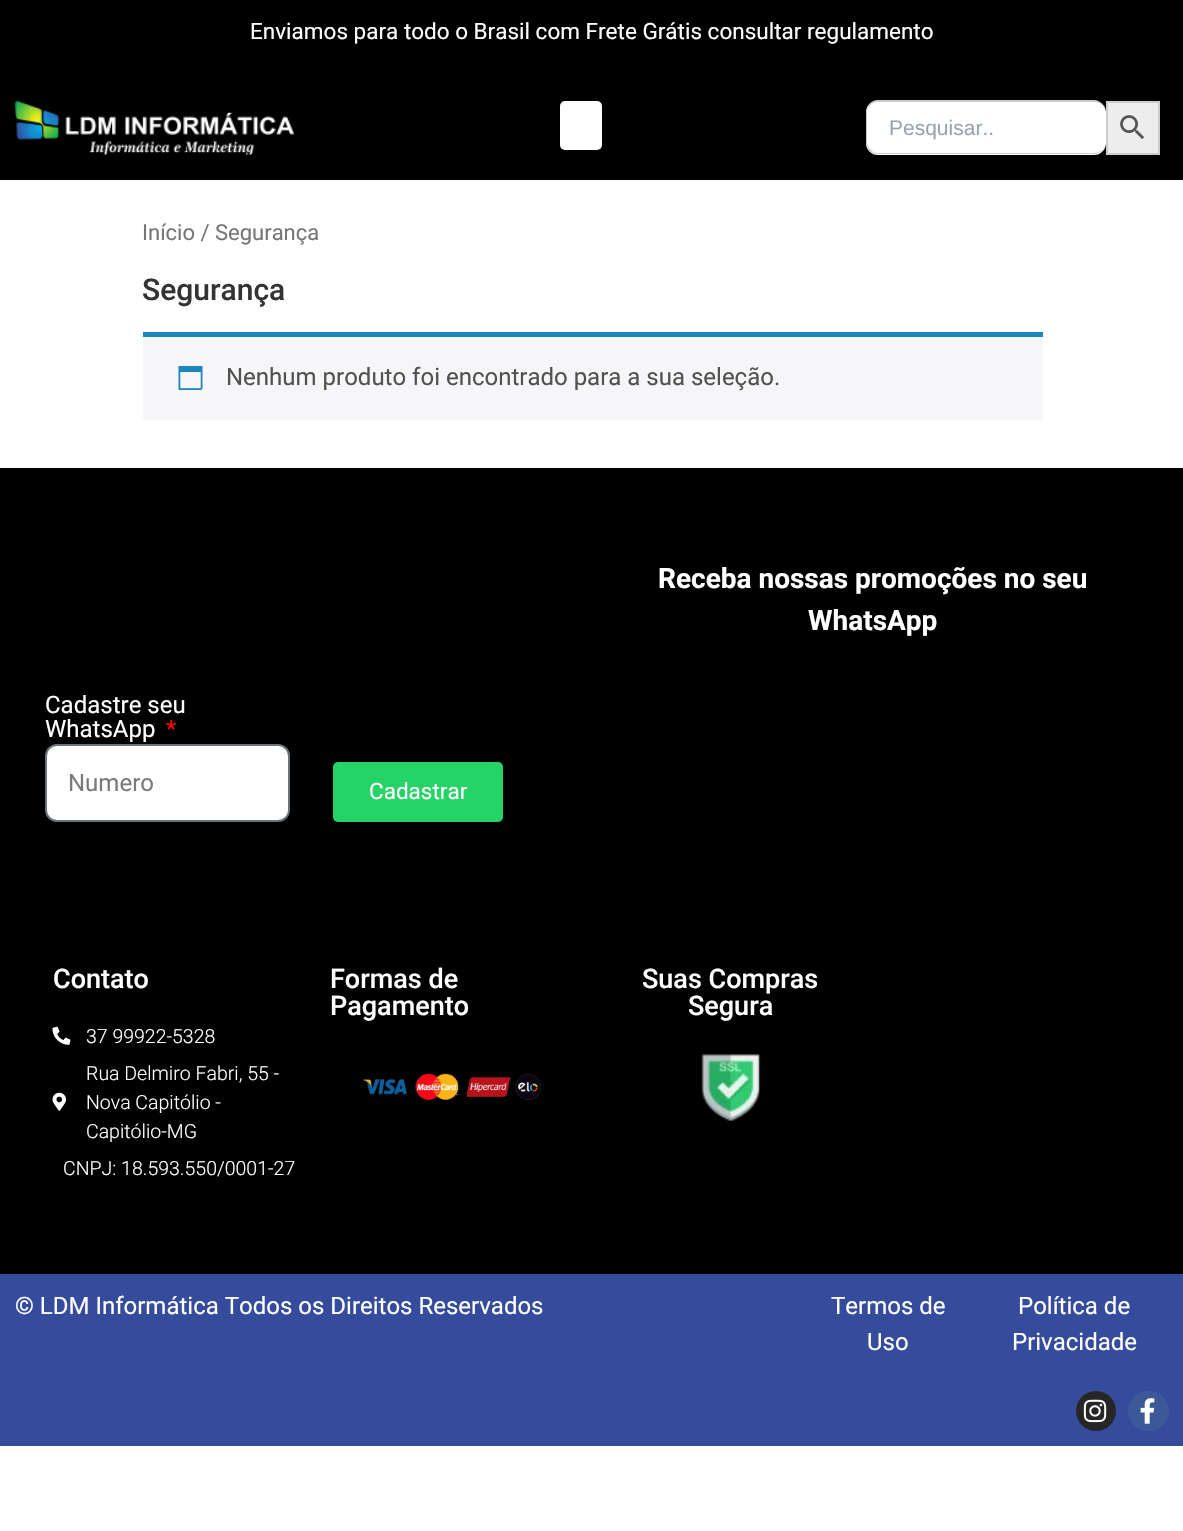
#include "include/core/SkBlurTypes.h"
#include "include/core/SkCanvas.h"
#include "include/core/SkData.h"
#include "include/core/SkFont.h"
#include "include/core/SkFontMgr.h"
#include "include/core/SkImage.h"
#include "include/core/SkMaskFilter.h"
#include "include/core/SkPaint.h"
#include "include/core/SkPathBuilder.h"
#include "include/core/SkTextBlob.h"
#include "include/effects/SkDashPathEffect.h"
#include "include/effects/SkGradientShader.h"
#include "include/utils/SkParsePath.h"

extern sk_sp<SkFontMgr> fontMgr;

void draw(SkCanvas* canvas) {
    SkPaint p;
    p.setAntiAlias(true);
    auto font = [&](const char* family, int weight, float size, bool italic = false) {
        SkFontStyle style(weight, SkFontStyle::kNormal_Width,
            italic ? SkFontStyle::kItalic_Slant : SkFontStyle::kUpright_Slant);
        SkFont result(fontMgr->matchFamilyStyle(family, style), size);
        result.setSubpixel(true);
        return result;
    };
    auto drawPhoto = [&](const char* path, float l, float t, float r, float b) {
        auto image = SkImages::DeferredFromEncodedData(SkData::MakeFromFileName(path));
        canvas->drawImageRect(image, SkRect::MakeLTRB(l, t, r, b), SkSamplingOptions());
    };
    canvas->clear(0xFFFFFFFF);
    p.setColor(0xFF000000);
    canvas->drawRect(SkRect::MakeLTRB(0, 0, 1183, 180), p);
    auto font1 = font("Roboto", 400, 22.5f);
    p.setColor(0xFFFFFFFF);
    canvas->drawString("Enviamos para todo o Brasil com Frete Grátis consultar regulamento", 250, 39, font1, p);
    drawPhoto("media/1.png", 15, 100, 294, 155);
    canvas->drawRoundRect(SkRect::MakeLTRB(560, 101, 602, 150), 5, 5, p);
    canvas->drawRoundRect(SkRect::MakeLTRB(866, 101, 1106, 155), 12, 12, p);
    p.setColor(0xFFCCCCCC);
    canvas->drawPath(SkPathBuilder(SkPathFillType::kEvenOdd).moveTo(878, 100).lineTo(1094, 100).cubicTo(1100, 100, 1106, 106, 1106, 112).lineTo(1106, 142).cubicTo(1106, 149, 1100, 154, 1094, 154).lineTo(878, 154).cubicTo(871, 154, 866, 149, 866, 142).lineTo(866, 112).cubicTo(866, 106, 871, 100, 878, 100).close().moveTo(878, 102).lineTo(1094, 102).cubicTo(1100, 102, 1106, 107, 1106, 112).lineTo(1106, 142).cubicTo(1106, 148, 1100, 153, 1094, 153).lineTo(878, 153).cubicTo(872, 153, 867, 148, 867, 142).lineTo(867, 112).cubicTo(867, 107, 872, 102, 878, 102).close().detach(), p);
    auto font2 = font("Liberation Sans", 400, 21);
    p.setColor(0xFF9CA3AF);
    canvas->drawString("Pesquisar..", 889, 135, font2, p);
    p.setColor(0xFFEDEDED);
    canvas->drawRect(SkRect::MakeLTRB(1107, 102, 1159, 154), p);
    p.setStyle(SkPaint::kStroke_Style);
    p.setStrokeWidth(2);
    p.setColor(0xFFCCCCCC);
    canvas->drawRect(SkRect::MakeLTRB(1107, 102, 1159, 154), p);
    drawPhoto("media/2.png", 1120, 115, 1145, 140);
    auto font3 = font("Roboto", 400, 22);
    p.setStyle(SkPaint::kFill_Style);
    p.setColor(0xFF767676);
    canvas->drawString("Início / Segurança", 142, 240, font3, p);
    auto font4 = font("Roboto", 500, 30);
    p.setColor(0xFF333333);
    canvas->drawString("Segurança", 142, 300, font4, p);
    p.setColor(0xFFF6F5F8);
    canvas->drawRect(SkRect::MakeLTRB(143, 337, 1043, 420), p);
    p.setColor(0xFF1E85BE);
    canvas->drawRect(SkRect::MakeLTRB(143, 332, 1043, 337), p);
    drawPhoto("media/3.png", 178, 366, 203, 390);
    auto font5 = font("Roboto", 400, 24);
    p.setColor(0xFF515151);
    canvas->drawString("Nenhum produto foi encontrado para a sua seleção.", 226, 385, font5, p);
    p.setColor(0xFF000000);
    canvas->drawRect(SkRect::MakeLTRB(0, 468, 1183, 1274), p);
    auto font6 = font("Roboto", 700, 28);
    p.setColor(0xFFFFFFFF);
    canvas->drawString("Receba nossas promoções no seu", 658, 588, font6, p);
    canvas->drawString("WhatsApp", 808, 630, font6, p);
    canvas->drawString("Cadastre seu", 45, 713, font5, p);
    canvas->drawString("WhatsApp", 45, 737, font5, p);
    p.setColor(0xFFFF0000);
    canvas->drawString("*", 166, 737, font5, p);
    p.setColor(0xFFFFFFFF);
    canvas->drawRoundRect(SkRect::MakeLTRB(46, 745, 289, 821), 11, 11, p);
    p.setStyle(SkPaint::kStroke_Style);
    p.setColor(0xFF69727D);
    canvas->drawRoundRect(SkRect::MakeLTRB(46, 745, 289, 821), 11, 11, p);
    p.setStyle(SkPaint::kFill_Style);
    p.setColor(0xFF797A7C);
    canvas->drawString("Numero", 68, 791, font5, p);
    p.setColor(0xFF25D366);
    canvas->drawRoundRect(SkRect::MakeLTRB(333, 762, 503, 822), 5, 5, p);
    p.setColor(0xFFFFFFFF);
    canvas->drawString("Cadastrar", 369, 799, font1, p);
    auto font7 = font("Roboto", 500, 27);
    canvas->drawString("Contato", 53, 988, font7, p);
    drawPhoto("media/4.png", 52, 1026, 71, 1045);
    auto font8 = font("Roboto", 300, 19.5f);
    canvas->drawString("37 99922-5328", 86, 1043, font8, p);
    drawPhoto("media/5.png", 52, 1092, 66, 1111);
    {
        const struct { const char* s; float x, y; } items[] = {
            {"Rua Delmiro Fabri, 55 -", 86, 1080},
            {"Nova Capitólio -", 86, 1109},
            {"Capitólio-MG", 86, 1138},
            {"CNPJ: 18.593.550/0001-27", 63, 1175},
        };
        for (auto [s, x, y] : items) {
            canvas->drawString(s, x, y, font8, p);
        }
    }
    canvas->drawString("Formas de", 330, 988, font7, p);
    canvas->drawString("Pagamento", 330, 1015, font7, p);
    drawPhoto("media/6.png", 363, 1073, 541, 1100);
    canvas->drawString("Suas Compras", 642, 988, font7, p);
    canvas->drawString("Segura", 688, 1015, font7, p);
    drawPhoto("media/7.png", 701, 1054, 761, 1122);
    p.setColor(0xFF354B9C);
    canvas->drawRect(SkRect::MakeLTRB(0, 1274, 1183, 1446), p);
    p.setColor(0xFFFFFFFF);
    {
        const struct { const char* s; float x, y; } items[] = {
            {"© LDM Informática Todos os Direitos Reservados", 15, 1314},
            {"Termos de", 831, 1314},
            {"Uso", 867, 1350},
            {"Política de", 1018, 1314},
            {"Privacidade", 1012, 1350},
        };
        for (auto [s, x, y] : items) {
            canvas->drawString(s, x, y, font5, p);
        }
    }
    p.setColor(0xFF262626);
    canvas->drawCircle(1096, 1411, 20, p);
    drawPhoto("media/8.png", 1083, 1399, 1107, 1423);
    p.setColor(0xFF3B5998);
    canvas->drawRoundRect(SkRect::MakeLTRB(1128, 1391, 1169, 1431), 20, 20, p);
    drawPhoto("media/9.png", 1140, 1398, 1155, 1424);
}
